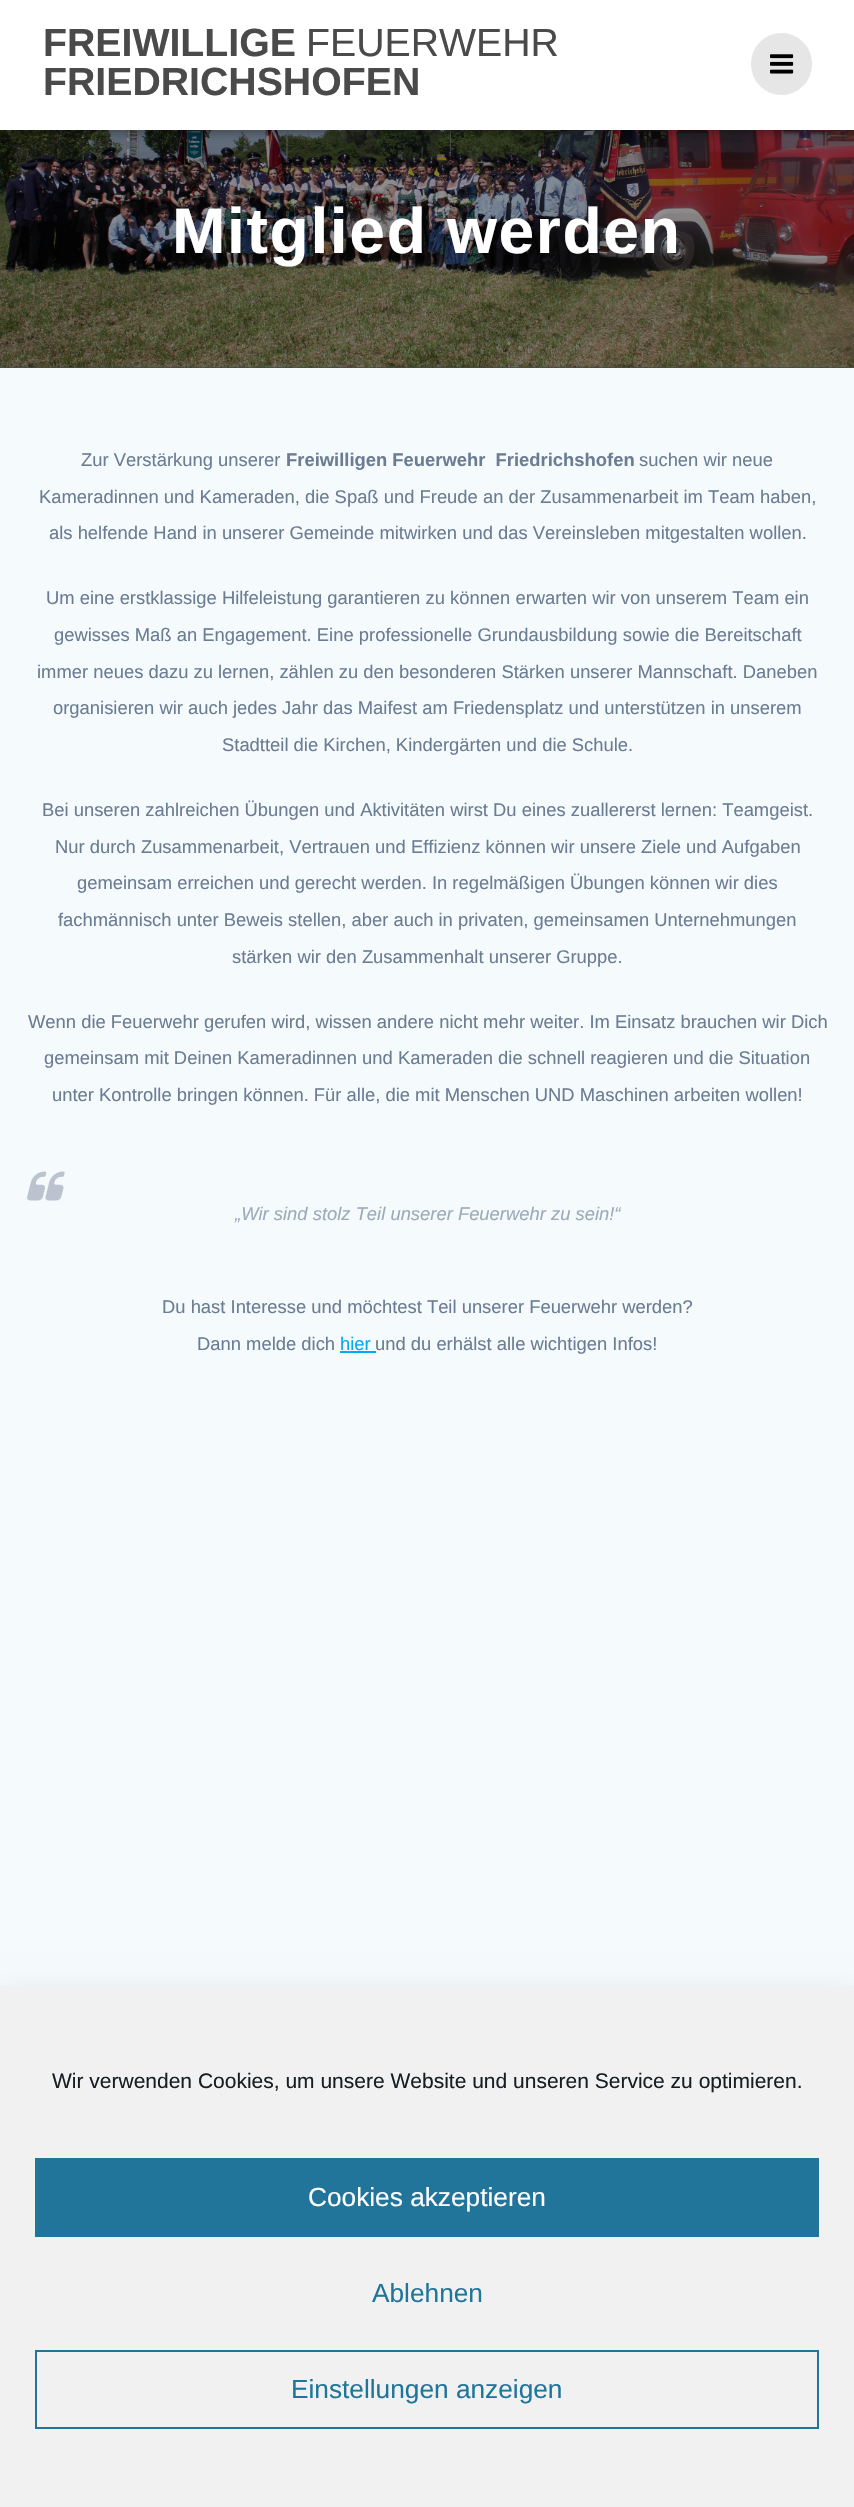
#include "include/core/SkBlurTypes.h"
#include "include/core/SkCanvas.h"
#include "include/core/SkData.h"
#include "include/core/SkFont.h"
#include "include/core/SkFontMgr.h"
#include "include/core/SkImage.h"
#include "include/core/SkMaskFilter.h"
#include "include/core/SkPaint.h"
#include "include/core/SkPathBuilder.h"
#include "include/core/SkTextBlob.h"
#include "include/effects/SkDashPathEffect.h"
#include "include/effects/SkGradientShader.h"
#include "include/utils/SkParsePath.h"

extern sk_sp<SkFontMgr> fontMgr;

void draw(SkCanvas* canvas) {
    SkPaint p;
    p.setAntiAlias(true);
    auto font = [&](const char* family, int weight, float size, bool italic = false) {
        SkFontStyle style(weight, SkFontStyle::kNormal_Width,
            italic ? SkFontStyle::kItalic_Slant : SkFontStyle::kUpright_Slant);
        SkFont result(fontMgr->matchFamilyStyle(family, style), size);
        result.setSubpixel(true);
        return result;
    };
    auto drawTracked = [&](const char* s, float x, float y, const SkFont& font, const SkPaint& ink, float letter, float word) {
        std::vector<SkGlyphID> glyphs(font.countText(s, strlen(s), SkTextEncoding::kUTF8));
        std::vector<float> xs(glyphs.size());
        font.textToGlyphs(s, strlen(s), SkTextEncoding::kUTF8, glyphs);
        font.getXPos(glyphs, xs, x);
        float extra = 0;
        for (size_t i = 0; i < glyphs.size(); i++) {
            xs[i] += extra;
            extra += letter + word * (glyphs[i] == font.unicharToGlyph(' '));
        }
        canvas->drawTextBlob(SkTextBlob::MakeFromPosHGlyphs(glyphs, xs, y, font), 0, 0, ink);
    };
    auto drawPhoto = [&](const char* path, float l, float t, float r, float b) {
        auto image = SkImages::DeferredFromEncodedData(SkData::MakeFromFileName(path));
        canvas->drawImageRect(image, SkRect::MakeLTRB(l, t, r, b), SkSamplingOptions());
    };
    canvas->clear(0xFF3D437E);
    drawPhoto("media/2.png", 0, 130, 854, 368);
    p.setColor(0x54000000);
    p.setMaskFilter(SkMaskFilter::MakeBlur(kNormal_SkBlurStyle, 4.5f));
    canvas->drawRect(SkRect::MakeLTRB(-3, -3, 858, 133), p);
    p.setMaskFilter(nullptr);
    p.setColor(0xFFFFFFFF);
    canvas->drawRect(SkRect::MakeLTRB(0, 0, 854, 130), p);
    auto font1 = font("Liberation Sans", 700, 39.25f);
    p.setColor(0xFF4A4A4A);
    canvas->drawString("FREIWILLIGE", 43, 56, font1, p);
    auto font2 = font("Liberation Sans", 400, 39.25f);
    canvas->drawString("FEUERWEHR", 306, 56, font2, p);
    canvas->drawString("FRIEDRICHSHOFEN", 43, 95, font1, p);
    p.setColor(0xFFE6E6E6);
    canvas->drawRoundRect(SkRect::MakeLTRB(751, 33, 812, 95), 30.5f, 30.5f, p);
    drawPhoto("media/1.png", 770, 54, 794, 74);
    auto font3 = font("Liberation Sans", 700, 64.25f);
    p.setColor(0xFFFFFFFF);
    drawTracked("Mitglied werden", 172, 253, font3, p, 1.6f, 0);
    p.setColor(0xFFF5FAFD);
    canvas->drawRect(SkRect::MakeLTRB(0, 368, 854, 1986), p);
    auto font4 = font("Liberation Sans", 400, 18.4f);
    p.setColor(0xFF6B7C93);
    canvas->drawString("Zur Verstärkung unserer", 81, 466, font4, p);
    auto font5 = font("Liberation Sans", 700, 18.4f);
    canvas->drawString("Freiwilligen Feuerwehr  Friedrichshofen", 286, 466, font5, p);
    {
        const struct { const char* s; float x, y; } items[] = {
            {"suchen wir neue", 639, 466},
            {"Kameradinnen und Kameraden, die Spaß und Freude an der Zusammenarbeit im Team haben,", 39, 503},
            {"als helfende Hand in unserer Gemeinde mitwirken und das Vereinsleben mitgestalten wollen.", 49, 539},
            {"Um eine erstklassige Hilfeleistung garantieren zu können erwarten wir von unserem Team ein", 46, 604},
            {"gewisses Maß an Engagement. Eine professionelle Grundausbildung sowie die Bereitschaft", 54, 641},
            {"immer neues dazu zu lernen, zählen zu den besonderen Stärken unserer Mannschaft. Daneben", 37, 678},
            {"organisieren wir auch jedes Jahr das Maifest am Friedensplatz und unterstützen in unserem", 53, 714},
            {"Stadtteil die Kirchen, Kindergärten und die Schule.", 222, 751},
            {"Bei unseren zahlreichen Übungen und Aktivitäten wirst Du eines zuallererst lernen: Teamgeist.", 42, 816},
            {"Nur durch Zusammenarbeit, Vertrauen und Effizienz können wir unsere Ziele und Aufgaben", 55, 853},
            {"gemeinsam erreichen und gerecht werden. In regelmäßigen Übungen können wir dies", 77, 889},
            {"fachmännisch unter Beweis stellen, aber auch in privaten, gemeinsamen Unternehmungen", 58, 926},
            {"stärken wir den Zusammenhalt unserer Gruppe.", 232, 963},
            {"Wenn die Feuerwehr gerufen wird, wissen andere nicht mehr weiter. Im Einsatz brauchen wir Dich", 28, 1028},
            {"gemeinsam mit Deinen Kameradinnen und Kameraden die schnell reagieren und die Situation", 44, 1064},
            {"unter Kontrolle bringen können. Für alle, die mit Menschen UND Maschinen arbeiten wollen!", 52, 1101},
        };
        for (auto [s, x, y] : items) {
            canvas->drawString(s, x, y, font4, p);
        }
    }
    drawPhoto("media/3.png", 27, 1171, 65, 1201);
    auto font6 = font("Liberation Sans", 400, 18.4f, true);
    p.setColor(0xFF9DAAB9);
    canvas->drawString("„Wir sind stolz Teil unserer Feuerwehr zu sein!“", 235, 1220, font6, p);
    p.setColor(0xFF6B7C93);
    canvas->drawString("Du hast Interesse und möchtest Teil unserer Feuerwehr werden?", 162, 1313, font4, p);
    canvas->drawString("Dann melde dich", 197, 1350, font4, p);
    p.setColor(0xFF03A9F4);
    canvas->drawString("hier", 340, 1350, font4, p);
    canvas->drawRect(SkRect::MakeLTRB(340, 1351, 376, 1353), p);
    p.setColor(0xFF6B7C93);
    canvas->drawString("und du erhälst alle wichtigen Infos!", 375, 1350, font4, p);
    p.setColor(0x30000000);
    p.setMaskFilter(SkMaskFilter::MakeBlur(kNormal_SkBlurStyle, 17.5f));
    canvas->drawRect(SkRect::MakeLTRB(0, 2004, 854, 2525), p);
    p.setMaskFilter(nullptr);
    p.setColor(0xFFF1F1F1);
    canvas->drawRect(SkRect::MakeLTRB(0, 1986, 854, 2507), p);
    auto font7 = font("Liberation Sans", 400, 21);
    p.setColor(0xFF191E23);
    canvas->drawString("Wir verwenden Cookies, um unsere Website und unseren Service zu optimieren.", 52, 2088, font7, p);
    p.setColor(0xFF21759B);
    canvas->drawRect(SkRect::MakeLTRB(35, 2158, 819, 2237), p);
    auto font8 = font("Liberation Sans", 400, 26.25f);
    p.setColor(0xFFFFFFFF);
    canvas->drawString("Cookies akzeptieren", 308, 2206, font8, p);
    p.setColor(0xFF21759B);
    canvas->drawString("Ablehnen", 372, 2302, font8, p);
    p.setStyle(SkPaint::kStroke_Style);
    p.setStrokeWidth(2);
    canvas->drawRect(SkRect::MakeLTRB(36, 2351, 818, 2428), p);
    p.setStyle(SkPaint::kFill_Style);
    canvas->drawString("Einstellungen anzeigen", 291, 2398, font8, p);
}
